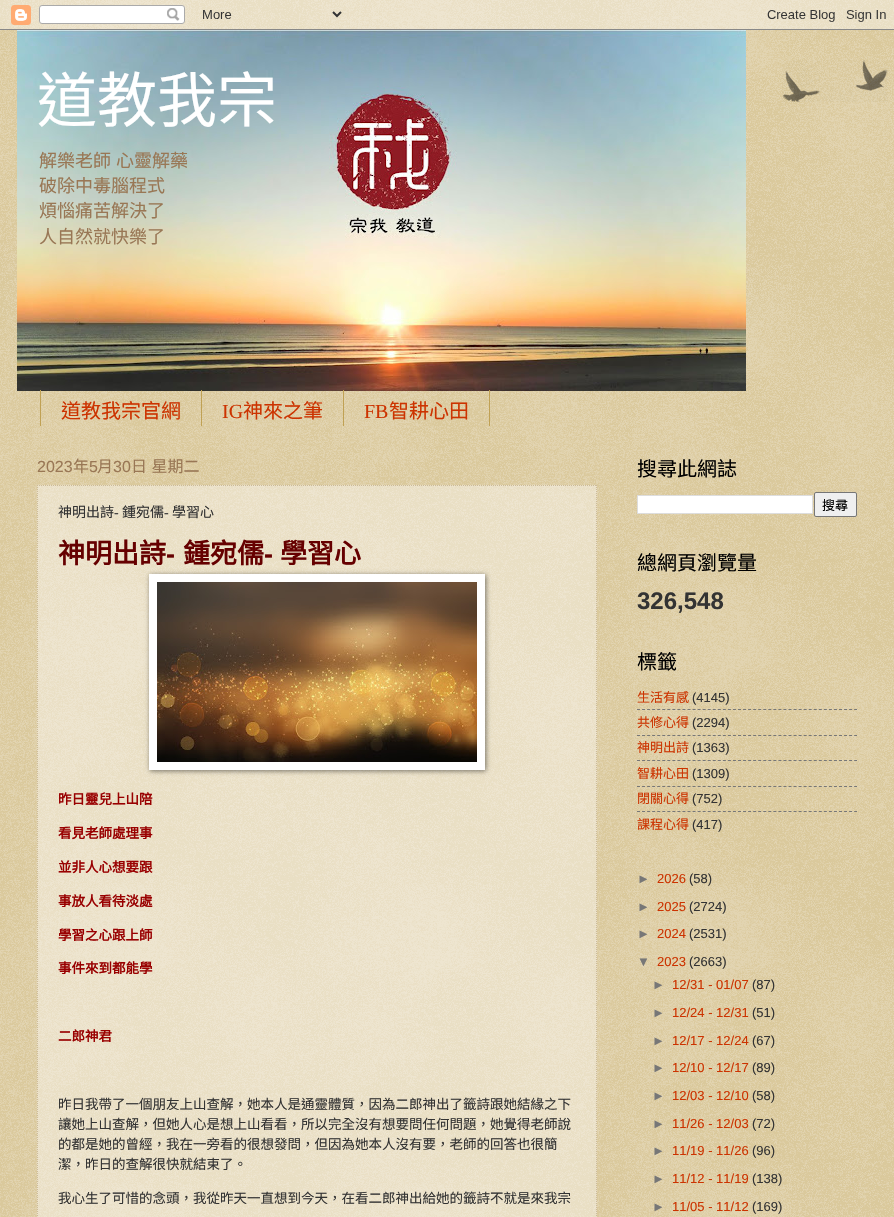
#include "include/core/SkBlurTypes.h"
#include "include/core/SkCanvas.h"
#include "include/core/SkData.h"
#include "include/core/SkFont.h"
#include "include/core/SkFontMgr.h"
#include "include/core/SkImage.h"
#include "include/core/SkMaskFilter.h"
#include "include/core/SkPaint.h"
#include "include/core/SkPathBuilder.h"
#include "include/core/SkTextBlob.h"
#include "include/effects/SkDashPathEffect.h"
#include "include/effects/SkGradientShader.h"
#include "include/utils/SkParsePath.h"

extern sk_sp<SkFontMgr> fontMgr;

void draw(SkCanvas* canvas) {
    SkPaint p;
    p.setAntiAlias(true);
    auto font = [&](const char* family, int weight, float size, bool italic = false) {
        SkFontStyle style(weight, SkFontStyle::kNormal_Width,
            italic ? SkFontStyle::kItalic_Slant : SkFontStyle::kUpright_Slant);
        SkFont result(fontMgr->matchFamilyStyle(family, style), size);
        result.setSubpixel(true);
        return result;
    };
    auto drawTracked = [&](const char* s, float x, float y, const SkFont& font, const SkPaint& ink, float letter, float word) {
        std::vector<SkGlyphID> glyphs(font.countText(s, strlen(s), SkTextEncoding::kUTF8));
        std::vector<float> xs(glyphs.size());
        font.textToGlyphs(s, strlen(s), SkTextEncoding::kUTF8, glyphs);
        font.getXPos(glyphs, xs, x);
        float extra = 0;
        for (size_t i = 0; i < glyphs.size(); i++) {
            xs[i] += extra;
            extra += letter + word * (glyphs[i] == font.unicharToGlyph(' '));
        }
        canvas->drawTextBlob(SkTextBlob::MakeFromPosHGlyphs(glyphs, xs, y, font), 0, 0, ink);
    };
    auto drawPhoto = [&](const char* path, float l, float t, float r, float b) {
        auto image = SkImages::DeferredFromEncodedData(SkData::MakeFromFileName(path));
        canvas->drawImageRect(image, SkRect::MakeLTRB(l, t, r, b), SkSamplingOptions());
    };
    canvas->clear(0xFFC0A154);
    drawPhoto("media/1.png", 0, 0, 894, 1217);
    drawPhoto("media/2.png", 0, 0, 894, 30);
    drawPhoto("media/3.png", 782, 60, 888, 102);
    drawPhoto("media/4.png", 17, 30, 746, 391);
    auto font1 = font("Noto Sans CJK TC", 400, 60);
    p.setColor(0xFFFFFFFF);
    canvas->drawString("道教我宗", 37, 122, font1, p);
    auto font2 = font("Noto Sans CJK TC", 400, 18);
    p.setColor(0xFF997755);
    drawTracked("解樂老師 心靈解藥", 39, 167, font2, p, 0, 1);
    {
        const struct { const char* s; float x, y; } items[] = {
            {"破除中毒腦程式", 39, 192},
            {"煩惱痛苦解決了", 39, 217},
            {"人自然就快樂了", 39, 243},
        };
        for (auto [s, x, y] : items) {
            canvas->drawString(s, x, y, font2, p);
        }
    }
    p.setColor(0xFFC0A154);
    canvas->drawRect(SkRect::MakeLTRB(201, 390, 202, 426), p);
    canvas->drawRect(SkRect::MakeLTRB(40, 390, 41, 426), p);
    auto font3 = font("Noto Sans CJK TC", 400, 20);
    p.setColor(0xFFCC3300);
    canvas->drawString("道教我宗官網", 61, 418, font3, p);
    p.setColor(0xFFC0A154);
    canvas->drawRect(SkRect::MakeLTRB(343, 390, 344, 426), p);
    auto font4 = font("Liberation Serif", 400, 20);
    p.setColor(0xFFCC3300);
    canvas->drawString("IG", 222, 418, font4, p);
    canvas->drawString("神來之筆", 243, 418, font3, p);
    p.setColor(0xFFC0A154);
    canvas->drawRect(SkRect::MakeLTRB(489, 390, 490, 426), p);
    p.setColor(0xFFCC3300);
    canvas->drawString("FB", 364, 418, font4, p);
    canvas->drawString("智耕心田", 389, 418, font3, p);
    auto font5 = font("Liberation Sans", 400, 16);
    p.setColor(0xFF997755);
    canvas->drawString("2023", 37, 472, font5, p);
    auto font6 = font("Noto Sans CJK TC", 400, 16);
    canvas->drawString("年", 73, 472, font6, p);
    canvas->drawString("5", 89, 472, font5, p);
    canvas->drawString("月", 97, 472, font6, p);
    canvas->drawString("30", 113, 472, font5, p);
    drawTracked("日 星期二", 131, 472, font6, p, 0, 1);
    p.setColor(0x66FFFFFF);
    canvas->drawRect(SkRect::MakeLTRB(37, 485, 597, 1217), p);
    p.setStyle(SkPaint::kStroke_Style);
    p.setStrokeWidth(1);
    p.setColor(0xFFCCBB99);
    p.setPathEffect(SkDashPathEffect::Make({{1, 1}}, 0));
    canvas->drawPath(SkPathBuilder().moveTo(37, 485.5f).lineTo(597, 485.5f).detach(), p);
    p.setPathEffect(nullptr);
    p.setPathEffect(SkDashPathEffect::Make({{1, 1}}, 0));
    canvas->drawPath(SkPathBuilder().moveTo(596.5f, 485).lineTo(596.5f, 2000).detach(), p);
    p.setPathEffect(nullptr);
    p.setPathEffect(SkDashPathEffect::Make({{1, 1}}, 0));
    canvas->drawPath(SkPathBuilder().moveTo(37.5f, 485).lineTo(37.5f, 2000).detach(), p);
    p.setPathEffect(nullptr);
    auto font7 = font("Noto Sans CJK TC", 400, 14);
    p.setStyle(SkPaint::kFill_Style);
    p.setColor(0xFF333333);
    canvas->drawString("神明出詩", 58, 517, font7, p);
    auto font8 = font("Liberation Serif", 400, 14);
    canvas->drawString("-", 114, 517, font8, p);
    canvas->drawString("鍾宛儒", 122, 517, font7, p);
    canvas->drawString("-", 164, 517, font8, p);
    canvas->drawString("學習心", 172, 517, font7, p);
    auto font9 = font("Noto Sans CJK TC", 700, 27);
    p.setColor(0xFF660000);
    canvas->drawString("神明出詩", 58, 563, font9, p);
    auto font10 = font("Liberation Sans", 700, 27);
    canvas->drawString("-", 166, 563, font10, p);
    canvas->drawString("鍾宛儒", 183, 563, font9, p);
    canvas->drawString("-", 264, 563, font10, p);
    canvas->drawString("學習心", 280, 563, font9, p);
    p.setColor(0x80000000);
    p.setMaskFilter(SkMaskFilter::MakeBlur(kNormal_SkBlurStyle, 2.5f));
    canvas->drawRect(SkRect::MakeLTRB(150, 575, 486, 771), p);
    p.setMaskFilter(nullptr);
    p.setColor(0xFFFFFFFF);
    canvas->drawRect(SkRect::MakeLTRB(149, 574, 485, 770), p);
    drawPhoto("media/5.png", 157, 582, 477, 762);
    auto font11 = font("Noto Sans CJK TC", 700, 13.5f);
    p.setColor(0xFF990000);
    {
        const struct { const char* s; float x, y; } items[] = {
            {"昨日靈兒上山陪", 58, 804},
            {"看見老師處理事", 58, 838},
            {"並非人心想要跟", 58, 872},
            {"事放人看待淡處", 58, 906},
            {"學習之心跟上師", 58, 940},
            {"事件來到都能學", 58, 973},
            {"二郎神君", 58, 1041},
        };
        for (auto [s, x, y] : items) {
            canvas->drawString(s, x, y, font11, p);
        }
    }
    auto font12 = font("Noto Sans CJK TC", 400, 13.5f);
    p.setColor(0xFF333333);
    {
        const struct { const char* s; float x, y; } items[] = {
            {"昨日我帶了一個朋友上山查解，她本人是通靈體質，因為二郎神出了籤詩跟她結緣之下", 58, 1109},
            {"讓她上山查解，但她人心是想上山看看，所以完全沒有想要問任何問題，她覺得老師說", 58, 1129},
            {"的都是她的曾經，我在一旁看的很想發問，但因為她本人沒有要，老師的回答也很簡", 58, 1149},
            {"潔，昨日的查解很快就結束了。", 58, 1169},
            {"我心生了可惜的念頭，我從昨天一直想到今天，在看二郎神出給她的籤詩不就是來我宗", 58, 1203},
        };
        for (auto [s, x, y] : items) {
            canvas->drawString(s, x, y, font12, p);
        }
    }
    p.setColor(0xFF000000);
    canvas->drawString("搜尋此網誌", 637, 476, font3, p);
    p.setColor(0xFFFFFFFF);
    canvas->drawRect(SkRect::MakeLTRB(637.5f, 495.5f, 812.5f, 513.5f), p);
    p.setStyle(SkPaint::kStroke_Style);
    p.setColor(0xFFDDDDDD);
    canvas->drawRect(SkRect::MakeLTRB(637.5f, 495.5f, 812.5f, 513.5f), p);
    p.setStyle(SkPaint::kFill_Style);
    p.setColor(0xFFEFEFEF);
    canvas->drawRoundRect(SkRect::MakeLTRB(814.5f, 492.5f, 856.5f, 516.5f), 1.5f, 1.5f, p);
    p.setStyle(SkPaint::kStroke_Style);
    p.setColor(0xFF767676);
    canvas->drawRoundRect(SkRect::MakeLTRB(814.5f, 492.5f, 856.5f, 516.5f), 1.5f, 1.5f, p);
    auto font13 = font("Noto Sans CJK TC", 400, 13);
    p.setStyle(SkPaint::kFill_Style);
    p.setColor(0xFF000000);
    canvas->drawString("搜尋", 822, 510, font13, p);
    canvas->drawString("總網頁瀏覽量", 637, 570, font3, p);
    auto font14 = font("Liberation Sans", 700, 24);
    p.setColor(0xFF333333);
    canvas->drawString("326,548", 637, 609, font14, p);
    p.setColor(0xFF000000);
    canvas->drawString("標籤", 637, 669, font3, p);
    p.setColor(0xFFCC3300);
    canvas->drawString("生活有感", 637, 702, font13, p);
    auto font15 = font("Liberation Sans", 400, 13);
    p.setColor(0xFF333333);
    canvas->drawString("(4145)", 692, 702, font15, p);
    p.setStyle(SkPaint::kStroke_Style);
    p.setColor(0xFF777777);
    p.setPathEffect(SkDashPathEffect::Make({{3, 2.05f}}, 0));
    canvas->drawPath(SkPathBuilder().moveTo(637, 709.5f).lineTo(857, 709.5f).detach(), p);
    p.setPathEffect(nullptr);
    p.setStyle(SkPaint::kFill_Style);
    p.setColor(0xFFCC3300);
    canvas->drawString("共修心得", 637, 727, font13, p);
    p.setColor(0xFF333333);
    canvas->drawString("(2294)", 692, 727, font15, p);
    p.setStyle(SkPaint::kStroke_Style);
    p.setColor(0xFF777777);
    p.setPathEffect(SkDashPathEffect::Make({{3, 2.05f}}, 0));
    canvas->drawPath(SkPathBuilder().moveTo(637, 735.5f).lineTo(857, 735.5f).detach(), p);
    p.setPathEffect(nullptr);
    p.setStyle(SkPaint::kFill_Style);
    p.setColor(0xFFCC3300);
    canvas->drawString("神明出詩", 637, 752, font13, p);
    p.setColor(0xFF333333);
    canvas->drawString("(1363)", 692, 752, font15, p);
    p.setStyle(SkPaint::kStroke_Style);
    p.setColor(0xFF777777);
    p.setPathEffect(SkDashPathEffect::Make({{3, 2.05f}}, 0));
    canvas->drawPath(SkPathBuilder().moveTo(637, 760.5f).lineTo(857, 760.5f).detach(), p);
    p.setPathEffect(nullptr);
    p.setStyle(SkPaint::kFill_Style);
    p.setColor(0xFFCC3300);
    canvas->drawString("智耕心田", 637, 778, font13, p);
    p.setColor(0xFF333333);
    canvas->drawString("(1309)", 692, 778, font15, p);
    p.setStyle(SkPaint::kStroke_Style);
    p.setColor(0xFF777777);
    p.setPathEffect(SkDashPathEffect::Make({{3, 2.05f}}, 0));
    canvas->drawPath(SkPathBuilder().moveTo(637, 786.5f).lineTo(857, 786.5f).detach(), p);
    p.setPathEffect(nullptr);
    p.setStyle(SkPaint::kFill_Style);
    p.setColor(0xFFCC3300);
    canvas->drawString("閉關心得", 637, 803, font13, p);
    p.setColor(0xFF333333);
    canvas->drawString("(752)", 692, 803, font15, p);
    p.setStyle(SkPaint::kStroke_Style);
    p.setColor(0xFF777777);
    p.setPathEffect(SkDashPathEffect::Make({{3, 2.05f}}, 0));
    canvas->drawPath(SkPathBuilder().moveTo(637, 811.5f).lineTo(857, 811.5f).detach(), p);
    p.setPathEffect(nullptr);
    p.setStyle(SkPaint::kFill_Style);
    p.setColor(0xFFCC3300);
    canvas->drawString("課程心得", 637, 829, font13, p);
    p.setColor(0xFF333333);
    canvas->drawString("(417)", 692, 829, font15, p);
    p.setColor(0xFF777777);
    canvas->drawString("►", 637, 883, font15, p);
    p.setColor(0xFFCC3300);
    canvas->drawString("2026", 657, 883, font15, p);
    p.setColor(0xFF333333);
    canvas->drawString("(58)", 689, 883, font15, p);
    p.setColor(0xFF777777);
    canvas->drawString("►", 637, 911, font15, p);
    p.setColor(0xFFCC3300);
    canvas->drawString("2025", 657, 911, font15, p);
    p.setColor(0xFF333333);
    canvas->drawString("(2724)", 689, 911, font15, p);
    p.setColor(0xFF777777);
    canvas->drawString("►", 637, 938, font15, p);
    p.setColor(0xFFCC3300);
    canvas->drawString("2024", 657, 938, font15, p);
    p.setColor(0xFF333333);
    canvas->drawString("(2531)", 689, 938, font15, p);
    p.setColor(0xFF777777);
    canvas->drawString("▼", 637, 966, font15, p);
    p.setColor(0xFFCC3300);
    canvas->drawString("2023", 657, 966, font15, p);
    p.setColor(0xFF333333);
    canvas->drawString("(2663)", 689, 966, font15, p);
    p.setColor(0xFF777777);
    canvas->drawString("►", 652, 989, font15, p);
    p.setColor(0xFFCC3300);
    canvas->drawString("12/31 - 01/07", 672, 989, font15, p);
    p.setColor(0xFF333333);
    canvas->drawString("(87)", 752, 989, font15, p);
    p.setColor(0xFF777777);
    canvas->drawString("►", 652, 1017, font15, p);
    p.setColor(0xFFCC3300);
    canvas->drawString("12/24 - 12/31", 672, 1017, font15, p);
    p.setColor(0xFF333333);
    canvas->drawString("(51)", 752, 1017, font15, p);
    p.setColor(0xFF777777);
    canvas->drawString("►", 652, 1045, font15, p);
    p.setColor(0xFFCC3300);
    canvas->drawString("12/17 - 12/24", 672, 1045, font15, p);
    p.setColor(0xFF333333);
    canvas->drawString("(67)", 752, 1045, font15, p);
    p.setColor(0xFF777777);
    canvas->drawString("►", 652, 1072, font15, p);
    p.setColor(0xFFCC3300);
    canvas->drawString("12/10 - 12/17", 672, 1072, font15, p);
    p.setColor(0xFF333333);
    canvas->drawString("(89)", 752, 1072, font15, p);
    p.setColor(0xFF777777);
    canvas->drawString("►", 652, 1100, font15, p);
    p.setColor(0xFFCC3300);
    canvas->drawString("12/03 - 12/10", 672, 1100, font15, p);
    p.setColor(0xFF333333);
    canvas->drawString("(58)", 752, 1100, font15, p);
    p.setColor(0xFF777777);
    canvas->drawString("►", 652, 1128, font15, p);
    p.setColor(0xFFCC3300);
    canvas->drawString("11/26 - 12/03", 672, 1128, font15, p);
    p.setColor(0xFF333333);
    canvas->drawString("(72)", 752, 1128, font15, p);
    p.setColor(0xFF777777);
    canvas->drawString("►", 652, 1155, font15, p);
    p.setColor(0xFFCC3300);
    canvas->drawString("11/19 - 11/26", 672, 1155, font15, p);
    p.setColor(0xFF333333);
    canvas->drawString("(96)", 752, 1155, font15, p);
    p.setColor(0xFF777777);
    canvas->drawString("►", 652, 1183, font15, p);
    p.setColor(0xFFCC3300);
    canvas->drawString("11/12 - 11/19", 672, 1183, font15, p);
    p.setColor(0xFF333333);
    canvas->drawString("(138)", 752, 1183, font15, p);
    p.setColor(0xFF777777);
    canvas->drawString("►", 652, 1211, font15, p);
    p.setColor(0xFFCC3300);
    canvas->drawString("11/05 - 11/12", 672, 1211, font15, p);
    p.setColor(0xFF333333);
    canvas->drawString("(169)", 752, 1211, font15, p);
}
